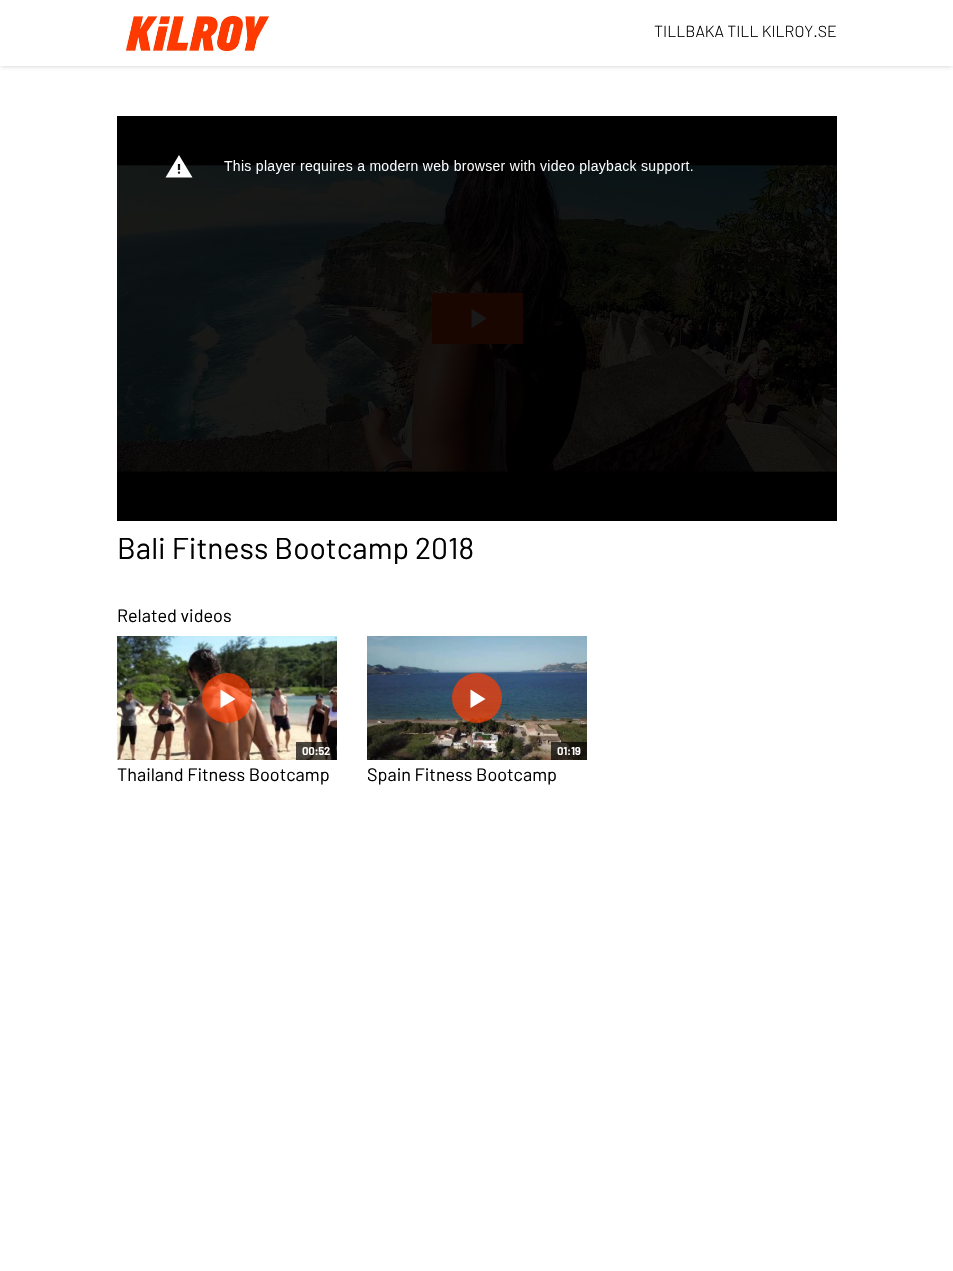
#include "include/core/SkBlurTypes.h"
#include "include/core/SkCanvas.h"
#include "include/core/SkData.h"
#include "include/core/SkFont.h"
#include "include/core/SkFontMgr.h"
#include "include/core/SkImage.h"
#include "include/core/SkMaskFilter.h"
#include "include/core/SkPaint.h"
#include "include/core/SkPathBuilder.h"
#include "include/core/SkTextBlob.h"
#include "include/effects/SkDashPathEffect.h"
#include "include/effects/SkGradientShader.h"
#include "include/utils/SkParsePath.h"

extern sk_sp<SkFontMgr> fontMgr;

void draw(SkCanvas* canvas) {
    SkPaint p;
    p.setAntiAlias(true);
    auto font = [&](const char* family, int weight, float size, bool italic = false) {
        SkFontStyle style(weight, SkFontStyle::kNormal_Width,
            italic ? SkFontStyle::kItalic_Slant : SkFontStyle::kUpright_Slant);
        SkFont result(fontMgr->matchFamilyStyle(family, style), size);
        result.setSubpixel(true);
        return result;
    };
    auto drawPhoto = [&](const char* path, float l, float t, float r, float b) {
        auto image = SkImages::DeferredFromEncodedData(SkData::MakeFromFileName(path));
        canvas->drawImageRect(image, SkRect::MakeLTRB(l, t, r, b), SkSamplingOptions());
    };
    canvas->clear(0xFFFFFFFF);
    canvas->save();
    canvas->clipRect(SkRect::MakeLTRB(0, 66, 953, 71));
    p.setColor(0xFFCCCCCC);
    p.setMaskFilter(SkMaskFilter::MakeBlur(kNormal_SkBlurStyle, 2.5f));
    canvas->drawRect(SkRect::MakeLTRB(1, -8, 952, 66), p);
    p.setMaskFilter(nullptr);
    canvas->restore();
    drawPhoto("media/1.png", 125, 15, 270, 53);
    auto font1 = font("Barlow", 300, 16);
    p.setColor(0xFF000000);
    canvas->drawString("TILLBAKA TILL KILROY.SE", 654, 37, font1, p);
    drawPhoto("media/2.png", 117, 116, 837, 521);
    canvas->save();
    canvas->clipRect(SkRect::MakeLTRB(117, 531, 712, 564));
    auto font2 = font("Barlow", 400, 30);
    canvas->drawString("Bali Fitness Bootcamp", 117, 559, font2, p);
    canvas->restore();
    canvas->drawString("2018", 415, 559, font2, p);
    auto font3 = font("Barlow", 400, 18);
    canvas->drawString("Related videos", 117, 622, font3, p);
    drawPhoto("media/3.png", 117, 636, 337, 760);
    p.setColor(0xB3FF3C00);
    canvas->drawCircle(227, 698, 25, p);
    p.setColor(0xFFFFFFFF);
    canvas->drawPath(SkPathBuilder().moveTo(220.5f, 708).lineTo(235.5f, 699).lineTo(220.5f, 689.5f).close().detach(), p);
    p.setColor(0xB3000000);
    canvas->drawRect(SkRect::MakeLTRB(296, 742, 337, 760), p);
    auto font4 = font("Barlow", 700, 11);
    p.setColor(0xFFFFFFFF);
    canvas->drawString("00:52", 302, 755, font4, p);
    p.setColor(0xFF000000);
    canvas->drawString("Thailand Fitness Bootcamp", 117, 781, font3, p);
    drawPhoto("media/4.png", 367, 636, 587, 760);
    p.setColor(0xB3FF3C00);
    canvas->drawCircle(477, 698, 25, p);
    p.setColor(0xFFFFFFFF);
    canvas->drawPath(SkPathBuilder().moveTo(470.5f, 708).lineTo(485.5f, 699).lineTo(470.5f, 689.5f).close().detach(), p);
    p.setColor(0xB3000000);
    canvas->drawRect(SkRect::MakeLTRB(551, 742, 587, 760), p);
    p.setColor(0xFFFFFFFF);
    canvas->drawString("01:19", 557, 755, font4, p);
    p.setColor(0xFF000000);
    canvas->drawString("Spain Fitness Bootcamp", 367, 781, font3, p);
}
